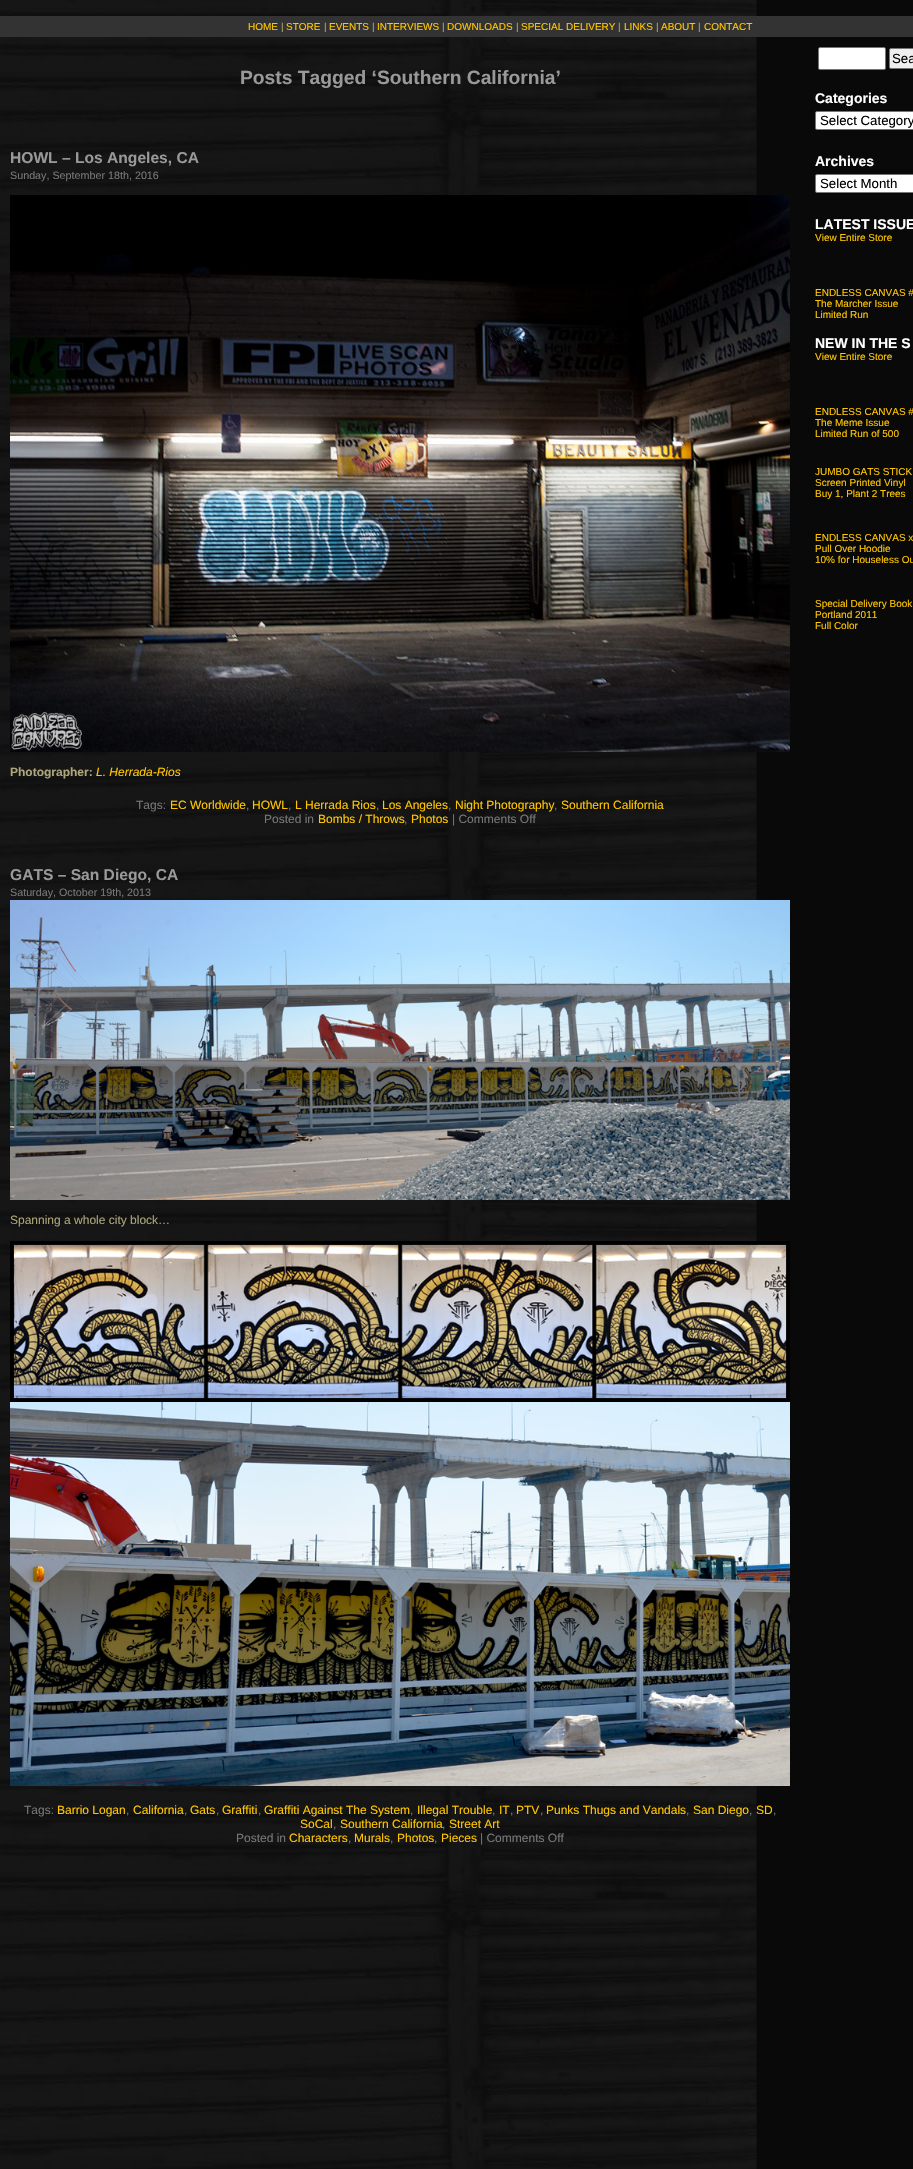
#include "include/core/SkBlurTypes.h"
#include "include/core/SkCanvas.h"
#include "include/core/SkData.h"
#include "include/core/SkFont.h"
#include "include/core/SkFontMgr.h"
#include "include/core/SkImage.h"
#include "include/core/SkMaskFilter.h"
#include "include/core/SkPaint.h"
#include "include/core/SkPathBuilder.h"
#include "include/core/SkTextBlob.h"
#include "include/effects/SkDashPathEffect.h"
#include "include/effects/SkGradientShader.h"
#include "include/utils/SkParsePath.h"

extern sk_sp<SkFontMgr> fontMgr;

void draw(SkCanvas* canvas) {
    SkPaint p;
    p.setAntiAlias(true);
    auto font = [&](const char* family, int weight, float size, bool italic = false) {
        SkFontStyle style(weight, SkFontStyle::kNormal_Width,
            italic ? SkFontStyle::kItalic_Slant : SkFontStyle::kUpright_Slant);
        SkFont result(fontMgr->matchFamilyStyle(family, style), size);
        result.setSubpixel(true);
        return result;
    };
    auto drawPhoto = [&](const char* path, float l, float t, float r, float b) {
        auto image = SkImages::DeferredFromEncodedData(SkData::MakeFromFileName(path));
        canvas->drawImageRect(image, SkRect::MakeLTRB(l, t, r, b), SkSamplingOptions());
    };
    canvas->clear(0xFFFFFFFF);
    drawPhoto("media/1.png", 0, 0, 913, 2169);
    p.setColor(0xFF333333);
    canvas->drawRect(SkRect::MakeLTRB(0, 16, 913, 37), p);
    auto font1 = font("Liberation Sans", 400, 10);
    p.setColor(0xFFFFC600);
    canvas->drawString("HOME", 248, 30, font1, p);
    p.setColor(0xFFAEA679);
    canvas->drawString("|", 281, 30, font1, p);
    p.setColor(0xFFFFC600);
    canvas->drawString("STORE", 286, 30, font1, p);
    p.setColor(0xFFAEA679);
    canvas->drawString("|", 324, 30, font1, p);
    p.setColor(0xFFFFC600);
    canvas->drawString("EVENTS", 329, 30, font1, p);
    p.setColor(0xFFAEA679);
    canvas->drawString("|", 372, 30, font1, p);
    p.setColor(0xFFFFC600);
    canvas->drawString("INTERVIEWS", 377, 30, font1, p);
    p.setColor(0xFFAEA679);
    canvas->drawString("|", 442, 30, font1, p);
    p.setColor(0xFFFFC600);
    canvas->drawString("DOWNLOADS", 447, 30, font1, p);
    p.setColor(0xFFAEA679);
    canvas->drawString("|", 516, 30, font1, p);
    p.setColor(0xFFFFC600);
    canvas->drawString("SPECIAL DELIVERY", 521, 30, font1, p);
    p.setColor(0xFFAEA679);
    canvas->drawString("|", 618, 30, font1, p);
    p.setColor(0xFFFFC600);
    canvas->drawString("LINKS", 624, 30, font1, p);
    p.setColor(0xFFAEA679);
    canvas->drawString("|", 656, 30, font1, p);
    p.setColor(0xFFFFC600);
    canvas->drawString("ABOUT", 661, 30, font1, p);
    p.setColor(0xFFAEA679);
    canvas->drawString("|", 698, 30, font1, p);
    p.setColor(0xFFFFC600);
    canvas->drawString("CONTACT", 704, 30, font1, p);
    auto font2 = font("Liberation Sans", 700, 19.25f);
    p.setColor(0xFF999999);
    canvas->drawString("Posts Tagged ‘Southern California’", 240, 84, font2, p);
    auto font3 = font("Liberation Sans", 700, 15.6f);
    canvas->drawString("HOWL – Los Angeles, CA", 10, 163, font3, p);
    auto font4 = font("Liberation Sans", 400, 10.75f);
    p.setColor(0xFF777777);
    canvas->drawString("Sunday, September 18th, 2016", 10, 179, font4, p);
    drawPhoto("media/2.png", 10, 195, 790, 752);
    auto font5 = font("Liberation Sans", 700, 12);
    p.setColor(0xFFAEA679);
    canvas->drawString("Photographer:", 10, 776, font5, p);
    auto font6 = font("Liberation Sans", 400, 12, true);
    p.setColor(0xFFFFC600);
    canvas->drawString("L. Herrada-Rios", 96, 776, font6, p);
    auto font7 = font("Liberation Sans", 400, 12);
    p.setColor(0xFF777777);
    canvas->drawString("Tags:", 136, 809, font7, p);
    p.setColor(0xFFFFC600);
    canvas->drawString("EC Worldwide", 170, 809, font7, p);
    p.setColor(0xFF777777);
    canvas->drawString(",", 246, 809, font7, p);
    p.setColor(0xFFFFC600);
    canvas->drawString("HOWL", 252, 809, font7, p);
    p.setColor(0xFF777777);
    canvas->drawString(",", 288, 809, font7, p);
    p.setColor(0xFFFFC600);
    canvas->drawString("L Herrada Rios", 295, 809, font7, p);
    p.setColor(0xFF777777);
    canvas->drawString(",", 376, 809, font7, p);
    p.setColor(0xFFFFC600);
    canvas->drawString("Los Angeles", 382, 809, font7, p);
    p.setColor(0xFF777777);
    canvas->drawString(",", 448, 809, font7, p);
    p.setColor(0xFFFFC600);
    canvas->drawString("Night Photography", 455, 809, font7, p);
    p.setColor(0xFF777777);
    canvas->drawString(",", 554, 809, font7, p);
    p.setColor(0xFFFFC600);
    canvas->drawString("Southern California", 561, 809, font7, p);
    p.setColor(0xFF777777);
    canvas->drawString("Posted in", 264, 823, font7, p);
    p.setColor(0xFFFFC600);
    canvas->drawString("Bombs / Throws", 318, 823, font7, p);
    p.setColor(0xFF777777);
    canvas->drawString(",", 404, 823, font7, p);
    p.setColor(0xFFFFC600);
    canvas->drawString("Photos", 411, 823, font7, p);
    p.setColor(0xFF777777);
    canvas->drawString("| Comments Off", 452, 823, font7, p);
    p.setColor(0xFF999999);
    canvas->drawString("GATS – San Diego, CA", 10, 880, font3, p);
    p.setColor(0xFF777777);
    canvas->drawString("Saturday, October 19th, 2013", 10, 896, font4, p);
    drawPhoto("media/3.png", 10, 900, 790, 1200);
    p.setColor(0xFFAEA679);
    canvas->drawString("Spanning a whole city block…", 10, 1224, font7, p);
    drawPhoto("media/4.png", 10, 1241, 790, 1402);
    drawPhoto("media/5.png", 10, 1402, 790, 1786);
    p.setColor(0xFF777777);
    canvas->drawString("Tags:", 24, 1814, font7, p);
    p.setColor(0xFFFFC600);
    canvas->drawString("Barrio Logan", 57, 1814, font7, p);
    p.setColor(0xFF777777);
    canvas->drawString(",", 126, 1814, font7, p);
    p.setColor(0xFFFFC600);
    canvas->drawString("California", 133, 1814, font7, p);
    p.setColor(0xFF777777);
    canvas->drawString(",", 184, 1814, font7, p);
    p.setColor(0xFFFFC600);
    canvas->drawString("Gats", 190, 1814, font7, p);
    p.setColor(0xFF777777);
    canvas->drawString(",", 216, 1814, font7, p);
    p.setColor(0xFFFFC600);
    canvas->drawString("Graffiti", 222, 1814, font7, p);
    p.setColor(0xFF777777);
    canvas->drawString(",", 258, 1814, font7, p);
    p.setColor(0xFFFFC600);
    canvas->drawString("Graffiti Against The System", 264, 1814, font7, p);
    p.setColor(0xFF777777);
    canvas->drawString(",", 410, 1814, font7, p);
    p.setColor(0xFFFFC600);
    canvas->drawString("Illegal Trouble", 417, 1814, font7, p);
    p.setColor(0xFF777777);
    canvas->drawString(",", 492, 1814, font7, p);
    p.setColor(0xFFFFC600);
    canvas->drawString("IT", 499, 1814, font7, p);
    p.setColor(0xFF777777);
    canvas->drawString(",", 510, 1814, font7, p);
    p.setColor(0xFFFFC600);
    canvas->drawString("PTV", 516, 1814, font7, p);
    p.setColor(0xFF777777);
    canvas->drawString(",", 540, 1814, font7, p);
    p.setColor(0xFFFFC600);
    canvas->drawString("Punks Thugs and Vandals", 546, 1814, font7, p);
    p.setColor(0xFF777777);
    canvas->drawString(",", 686, 1814, font7, p);
    p.setColor(0xFFFFC600);
    canvas->drawString("San Diego", 693, 1814, font7, p);
    p.setColor(0xFF777777);
    canvas->drawString(",", 749, 1814, font7, p);
    p.setColor(0xFFFFC600);
    canvas->drawString("SD", 756, 1814, font7, p);
    p.setColor(0xFF777777);
    canvas->drawString(",", 773, 1814, font7, p);
    p.setColor(0xFFFFC600);
    canvas->drawString("SoCal", 300, 1828, font7, p);
    p.setColor(0xFF777777);
    canvas->drawString(",", 333, 1828, font7, p);
    p.setColor(0xFFFFC600);
    canvas->drawString("Southern California", 340, 1828, font7, p);
    p.setColor(0xFF777777);
    canvas->drawString(",", 442, 1828, font7, p);
    p.setColor(0xFFFFC600);
    canvas->drawString("Street Art", 449, 1828, font7, p);
    p.setColor(0xFF777777);
    canvas->drawString("Posted in", 236, 1842, font7, p);
    p.setColor(0xFFFFC600);
    canvas->drawString("Characters", 289, 1842, font7, p);
    p.setColor(0xFF777777);
    canvas->drawString(",", 348, 1842, font7, p);
    p.setColor(0xFFFFC600);
    canvas->drawString("Murals", 354, 1842, font7, p);
    p.setColor(0xFF777777);
    canvas->drawString(",", 390, 1842, font7, p);
    p.setColor(0xFFFFC600);
    canvas->drawString("Photos", 397, 1842, font7, p);
    p.setColor(0xFF777777);
    canvas->drawString(",", 434, 1842, font7, p);
    p.setColor(0xFFFFC600);
    canvas->drawString("Pieces", 441, 1842, font7, p);
    p.setColor(0xFF777777);
    canvas->drawString("| Comments Off", 480, 1842, font7, p);
    p.setColor(0xFFFFFFFF);
    canvas->drawRoundRect(SkRect::MakeLTRB(818.5f, 47.5f, 885.5f, 69.5f), 1.5f, 1.5f, p);
    p.setStyle(SkPaint::kStroke_Style);
    p.setStrokeWidth(1);
    p.setColor(0xFF767676);
    canvas->drawRoundRect(SkRect::MakeLTRB(818.5f, 47.5f, 885.5f, 69.5f), 1.5f, 1.5f, p);
    p.setStyle(SkPaint::kFill_Style);
    p.setColor(0xFFEFEFEF);
    canvas->drawRoundRect(SkRect::MakeLTRB(889.5f, 48.5f, 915.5f, 68.5f), 1.5f, 1.5f, p);
    p.setStyle(SkPaint::kStroke_Style);
    p.setColor(0xFF767676);
    canvas->drawRoundRect(SkRect::MakeLTRB(889.5f, 48.5f, 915.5f, 68.5f), 1.5f, 1.5f, p);
    auto font8 = font("Liberation Sans", 400, 13.25f);
    p.setStyle(SkPaint::kFill_Style);
    p.setColor(0xFF000000);
    canvas->drawString("Sea", 892, 63, font8, p);
    auto font9 = font("Liberation Sans", 700, 14);
    p.setColor(0xFFFFFFFF);
    canvas->drawString("Categories", 815, 103, font9, p);
    canvas->drawRoundRect(SkRect::MakeLTRB(815.5f, 111.5f, 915.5f, 129.5f), 1.5f, 1.5f, p);
    p.setStyle(SkPaint::kStroke_Style);
    p.setColor(0xFF767676);
    canvas->drawRoundRect(SkRect::MakeLTRB(815.5f, 111.5f, 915.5f, 129.5f), 1.5f, 1.5f, p);
    p.setStyle(SkPaint::kFill_Style);
    p.setColor(0xFF000000);
    canvas->drawString("Select Category", 820, 125, font8, p);
    p.setColor(0xFFFFFFFF);
    canvas->drawString("Archives", 815, 166, font9, p);
    canvas->drawRoundRect(SkRect::MakeLTRB(815.5f, 174.5f, 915.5f, 192.5f), 1.5f, 1.5f, p);
    p.setStyle(SkPaint::kStroke_Style);
    p.setColor(0xFF767676);
    canvas->drawRoundRect(SkRect::MakeLTRB(815.5f, 174.5f, 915.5f, 192.5f), 1.5f, 1.5f, p);
    p.setStyle(SkPaint::kFill_Style);
    p.setColor(0xFF000000);
    canvas->drawString("Select Month", 820, 188, font8, p);
    p.setColor(0xFFFFFFFF);
    canvas->drawString("LATEST ISSUE", 815, 229, font9, p);
    p.setColor(0xFFFFC600);
    {
        const struct { const char* s; float x, y; } items[] = {
            {"View Entire Store", 815, 241},
            {"ENDLESS CANVAS #", 815, 296},
            {"The Marcher Issue", 815, 307},
            {"Limited Run", 815, 318},
        };
        for (auto [s, x, y] : items) {
            canvas->drawString(s, x, y, font1, p);
        }
    }
    p.setColor(0xFFFFFFFF);
    canvas->drawString("NEW IN THE S", 815, 348, font9, p);
    p.setColor(0xFFFFC600);
    {
        const struct { const char* s; float x, y; } items[] = {
            {"View Entire Store", 815, 360},
            {"ENDLESS CANVAS #", 815, 415},
            {"The Meme Issue", 815, 426},
            {"Limited Run of 500", 815, 437},
            {"JUMBO GATS STICK", 815, 475},
            {"Screen Printed Vinyl", 815, 486},
            {"Buy 1, Plant 2 Trees", 815, 497},
            {"ENDLESS CANVAS x", 815, 541},
            {"Pull Over Hoodie", 815, 552},
            {"10% for Houseless Ou", 815, 563},
            {"Special Delivery Book", 815, 607},
            {"Portland 2011", 815, 618},
            {"Full Color", 815, 629},
        };
        for (auto [s, x, y] : items) {
            canvas->drawString(s, x, y, font1, p);
        }
    }
}
